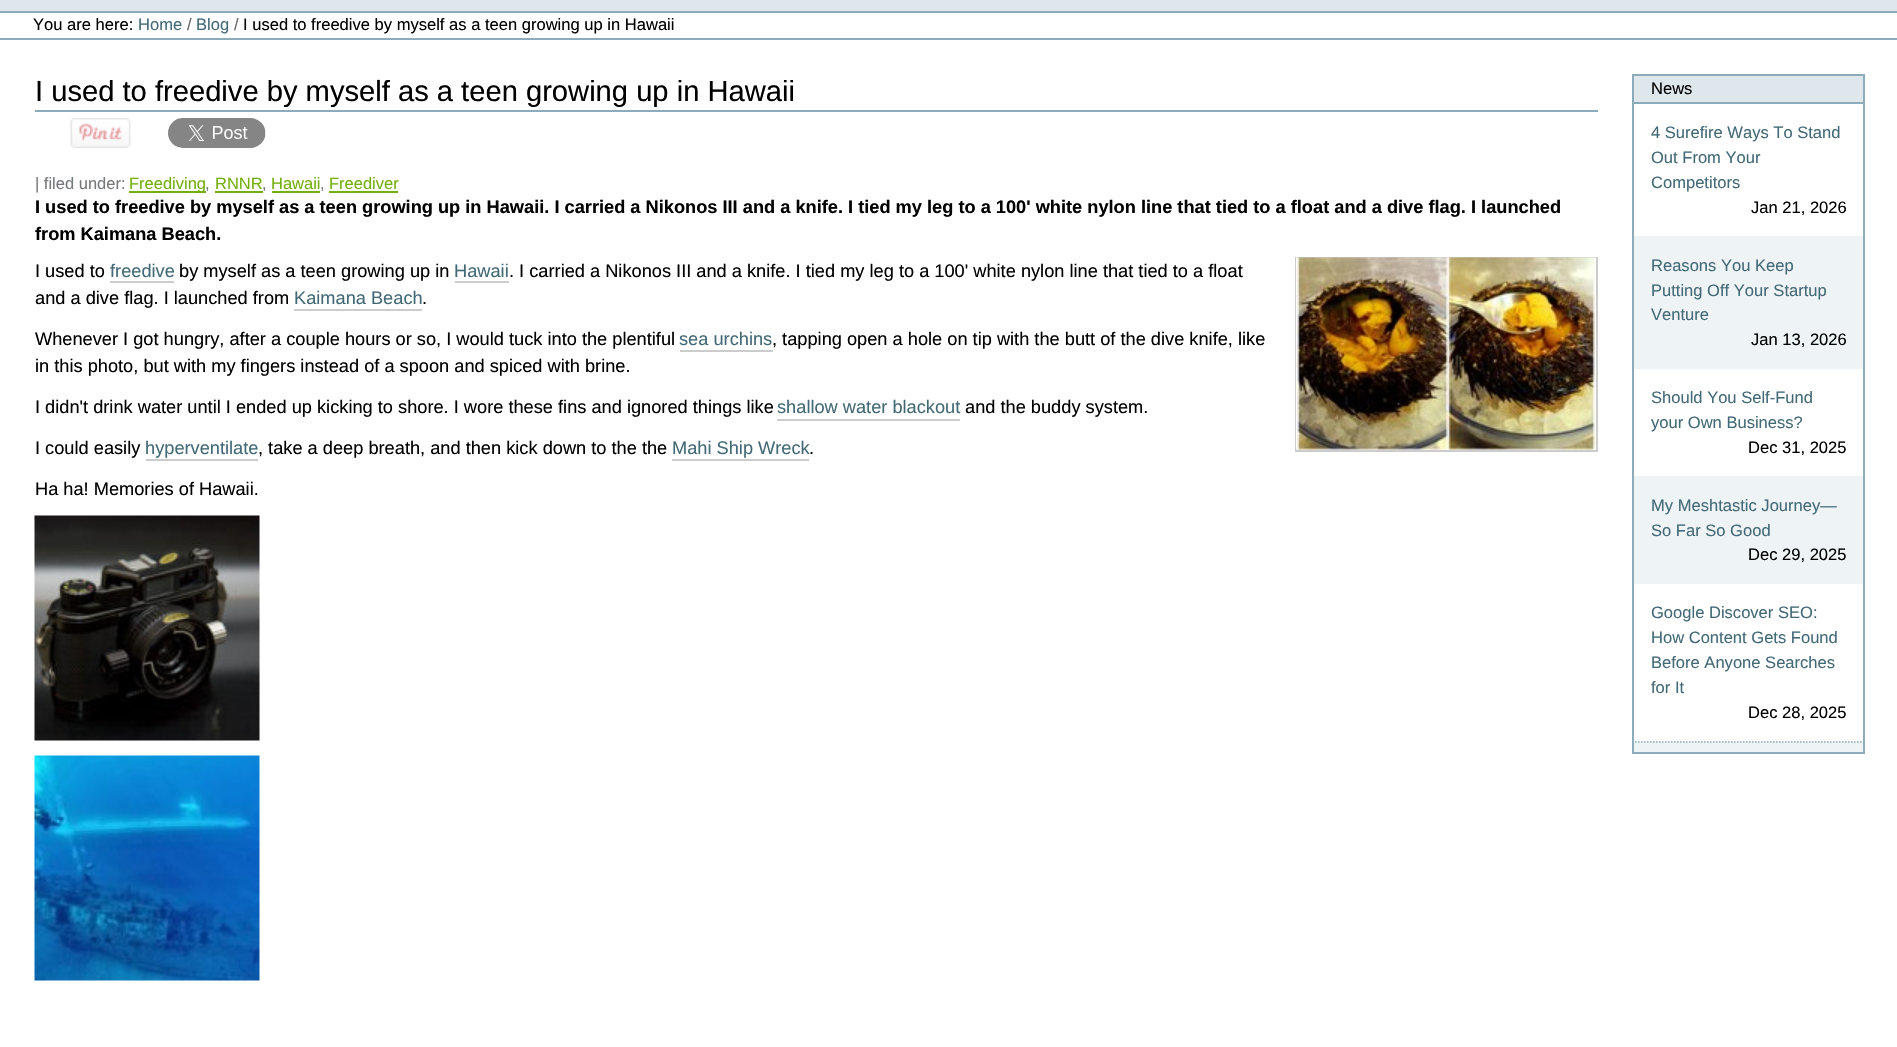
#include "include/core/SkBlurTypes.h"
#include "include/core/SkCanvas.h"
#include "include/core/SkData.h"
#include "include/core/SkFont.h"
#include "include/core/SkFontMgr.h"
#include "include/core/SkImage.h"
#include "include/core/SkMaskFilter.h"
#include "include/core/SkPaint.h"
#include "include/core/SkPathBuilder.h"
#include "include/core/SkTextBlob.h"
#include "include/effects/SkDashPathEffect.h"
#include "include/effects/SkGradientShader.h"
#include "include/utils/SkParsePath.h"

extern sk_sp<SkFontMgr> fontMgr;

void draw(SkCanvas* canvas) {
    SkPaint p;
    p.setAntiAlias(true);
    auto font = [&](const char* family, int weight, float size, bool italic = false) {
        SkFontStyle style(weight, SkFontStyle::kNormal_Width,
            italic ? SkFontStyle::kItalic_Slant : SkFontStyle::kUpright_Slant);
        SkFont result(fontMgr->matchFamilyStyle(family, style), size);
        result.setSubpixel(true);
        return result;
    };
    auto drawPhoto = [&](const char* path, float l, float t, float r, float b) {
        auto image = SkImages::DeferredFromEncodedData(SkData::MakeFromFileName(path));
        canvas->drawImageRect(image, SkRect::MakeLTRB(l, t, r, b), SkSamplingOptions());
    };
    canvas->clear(0xFFFFFFFF);
    {
        const struct { float l, t, r, b; SkColor color; } items[] = {
            {0, 0, 1897, 11, 0xFFDEE7EC},
            {0, 11, 1897, 13, 0xFF8CACBB},
            {0, 38, 1897, 40, 0xFF8CACBB},
        };
        for (auto [l, t, r, b, color] : items) {
            p.setColor(color);
            canvas->drawRect(SkRect::MakeLTRB(l, t, r, b), p);
        }
    }
    auto font1 = font("Liberation Sans", 400, 16.55f);
    p.setColor(0xFF000000);
    canvas->drawString("You are here:", 33, 30, font1, p);
    p.setColor(0xFF436976);
    canvas->drawString("Home", 138, 30, font1, p);
    p.setColor(0xFF666666);
    canvas->drawString("/", 187, 30, font1, p);
    p.setColor(0xFF436976);
    canvas->drawString("Blog", 196, 30, font1, p);
    p.setColor(0xFF666666);
    canvas->drawString("/", 234, 30, font1, p);
    p.setColor(0xFF000000);
    canvas->drawString("I used to freedive by myself as a teen growing up in Hawaii", 243, 30, font1, p);
    p.setColor(0xFF8CACBB);
    canvas->drawRect(SkRect::MakeLTRB(35, 110, 1598, 112), p);
    auto font2 = font("Liberation Sans", 400, 29.15f);
    p.setColor(0xFF000000);
    canvas->drawString("I used to freedive by myself as a teen growing up in Hawaii", 35, 101, font2, p);
    drawPhoto("media/1.png", 70, 118, 131, 148);
    drawPhoto("media/2.png", 168, 118, 266, 148);
    auto font3 = font("Liberation Sans", 400, 16.5f);
    p.setColor(0xFF76797C);
    canvas->drawString("| filed under:", 35, 189, font3, p);
    p.setColor(0xFF74AE0B);
    canvas->drawRect(SkRect::MakeLTRB(129, 191, 206, 193), p);
    canvas->drawString("Freediving", 129, 189, font3, p);
    p.setColor(0xFF76797C);
    canvas->drawString(",", 205, 189, font3, p);
    p.setColor(0xFF74AE0B);
    canvas->drawString("RNNR", 215, 189, font3, p);
    p.setColor(0xFF76797C);
    canvas->drawString(",", 262, 189, font3, p);
    p.setColor(0xFF74AE0B);
    canvas->drawRect(SkRect::MakeLTRB(215, 191, 263, 193), p);
    canvas->drawString("Hawaii", 271, 189, font3, p);
    p.setColor(0xFF76797C);
    canvas->drawString(",", 320, 189, font3, p);
    p.setColor(0xFF74AE0B);
    canvas->drawRect(SkRect::MakeLTRB(272, 191, 320, 193), p);
    canvas->drawRect(SkRect::MakeLTRB(329, 191, 398, 193), p);
    canvas->drawString("Freediver", 329, 189, font3, p);
    auto font4 = font("Liberation Sans", 700, 18.22f);
    p.setColor(0xFF000000);
    canvas->drawString("I used to freedive by myself as a teen growing up in Hawaii. I carried a Nikonos III and a knife. I tied my leg to a 100' white nylon line that tied to a float and a dive flag. I launched", 35, 213, font4, p);
    canvas->drawString("from Kaimana Beach.", 35, 240, font4, p);
    auto font5 = font("Liberation Sans", 400, 18.22f);
    canvas->drawString("I used to", 35, 277, font5, p);
    p.setColor(0xFF436976);
    canvas->drawString("freedive", 110, 277, font5, p);
    p.setColor(0xFFCCCCCC);
    canvas->drawRect(SkRect::MakeLTRB(110, 281, 174, 283), p);
    p.setColor(0xFF000000);
    canvas->drawString("by myself as a teen growing up in", 179, 277, font5, p);
    p.setColor(0xFF436976);
    canvas->drawString("Hawaii", 454, 277, font5, p);
    p.setColor(0xFFCCCCCC);
    canvas->drawRect(SkRect::MakeLTRB(455, 281, 509, 283), p);
    p.setColor(0xFF000000);
    canvas->drawString(". I carried a Nikonos III and a knife. I tied my leg to a 100' white nylon line that tied to a float", 509, 277, font5, p);
    canvas->drawString("and a dive flag. I launched from", 35, 304, font5, p);
    p.setColor(0xFF436976);
    canvas->drawString("Kaimana Beach", 294, 304, font5, p);
    p.setColor(0xFFCCCCCC);
    canvas->drawRect(SkRect::MakeLTRB(294, 309, 422, 311), p);
    p.setColor(0xFF000000);
    canvas->drawString(".", 422, 304, font5, p);
    canvas->drawString("Whenever I got hungry, after a couple hours or so, I would tuck into the plentiful", 35, 345, font5, p);
    p.setColor(0xFF436976);
    canvas->drawString("sea urchins", 679, 345, font5, p);
    p.setColor(0xFFCCCCCC);
    canvas->drawRect(SkRect::MakeLTRB(680, 350, 773, 352), p);
    p.setColor(0xFF000000);
    {
        const struct { const char* s; float x, y; } items[] = {
            {", tapping open a hole on tip with the butt of the dive knife, like", 772, 345},
            {"in this photo, but with my fingers instead of a spoon and spiced with brine.", 35, 372},
            {"I didn't drink water until I ended up kicking to shore. I wore these fins and ignored things like", 35, 413},
        };
        for (auto [s, x, y] : items) {
            canvas->drawString(s, x, y, font5, p);
        }
    }
    p.setColor(0xFF436976);
    canvas->drawString("shallow water blackout", 777, 413, font5, p);
    p.setColor(0xFFCCCCCC);
    canvas->drawRect(SkRect::MakeLTRB(777, 419, 960, 421), p);
    p.setColor(0xFF000000);
    canvas->drawString("and the buddy system.", 965, 413, font5, p);
    canvas->drawString("I could easily", 35, 454, font5, p);
    p.setColor(0xFF436976);
    canvas->drawString("hyperventilate", 145, 454, font5, p);
    p.setColor(0xFFCCCCCC);
    canvas->drawRect(SkRect::MakeLTRB(146, 459, 258, 461), p);
    p.setColor(0xFF000000);
    canvas->drawString(", take a deep breath, and then kick down to the the", 258, 454, font5, p);
    p.setColor(0xFF436976);
    canvas->drawString("Mahi Ship Wreck", 672, 454, font5, p);
    p.setColor(0xFFCCCCCC);
    canvas->drawRect(SkRect::MakeLTRB(672, 459, 809, 461), p);
    p.setColor(0xFF000000);
    canvas->drawString(".", 809, 454, font5, p);
    canvas->drawString("Ha ha! Memories of Hawaii.", 35, 495, font5, p);
    drawPhoto("media/3.png", 34, 515, 260, 741);
    drawPhoto("media/4.png", 34, 755, 260, 981);
    p.setStyle(SkPaint::kStroke_Style);
    p.setStrokeWidth(2);
    p.setColor(0xFFCCCCCC);
    canvas->drawRect(SkRect::MakeLTRB(1296, 258, 1597, 451), p);
    drawPhoto("media/5.png", 1296, 257, 1596, 450);
    p.setStyle(SkPaint::kFill_Style);
    p.setColor(0xFF8CACBB);
    canvas->drawRect(SkRect::MakeLTRB(1632, 752, 1865, 754), p);
    p.setColor(0xFFDEE7EC);
    canvas->drawRect(SkRect::MakeLTRB(1633, 75, 1864, 103), p);
    p.setStyle(SkPaint::kStroke_Style);
    p.setColor(0xFF8CACBB);
    canvas->drawRect(SkRect::MakeLTRB(1633, 75, 1864, 103), p);
    p.setStyle(SkPaint::kFill_Style);
    p.setColor(0xFF000000);
    canvas->drawString("News", 1651, 94, font1, p);
    p.setColor(0xFF8CACBB);
    canvas->drawRect(SkRect::MakeLTRB(1863, 104, 1865, 741), p);
    canvas->drawRect(SkRect::MakeLTRB(1632, 104, 1634, 741), p);
    p.setColor(0xFF436976);
    {
        const struct { const char* s; float x, y; } items[] = {
            {"4 Surefire Ways To Stand", 1651, 138},
            {"Out From Your", 1651, 163},
            {"Competitors", 1651, 188},
        };
        for (auto [s, x, y] : items) {
            canvas->drawString(s, x, y, font1, p);
        }
    }
    p.setColor(0xFF000000);
    canvas->drawString("Jan 21, 2026", 1751, 213, font1, p);
    p.setColor(0xFFEEF3F5);
    canvas->drawRect(SkRect::MakeLTRB(1634, 236, 1863, 369), p);
    p.setColor(0xFF436976);
    {
        const struct { const char* s; float x, y; } items[] = {
            {"Reasons You Keep", 1651, 271},
            {"Putting Off Your Startup", 1651, 296},
            {"Venture", 1651, 320},
        };
        for (auto [s, x, y] : items) {
            canvas->drawString(s, x, y, font1, p);
        }
    }
    p.setColor(0xFF000000);
    canvas->drawString("Jan 13, 2026", 1751, 345, font1, p);
    p.setColor(0xFF436976);
    canvas->drawString("Should You Self-Fund", 1651, 403, font1, p);
    canvas->drawString("your Own Business?", 1651, 428, font1, p);
    p.setColor(0xFF000000);
    canvas->drawString("Dec 31, 2025", 1748, 453, font1, p);
    p.setColor(0xFFEEF3F5);
    canvas->drawRect(SkRect::MakeLTRB(1634, 476, 1863, 584), p);
    p.setColor(0xFF436976);
    canvas->drawString("My Meshtastic Journey—", 1651, 511, font1, p);
    canvas->drawString("So Far So Good", 1651, 536, font1, p);
    p.setColor(0xFF000000);
    canvas->drawString("Dec 29, 2025", 1748, 560, font1, p);
    p.setColor(0xFF436976);
    {
        const struct { const char* s; float x, y; } items[] = {
            {"Google Discover SEO:", 1651, 618},
            {"How Content Gets Found", 1651, 643},
            {"Before Anyone Searches", 1651, 668},
            {"for It", 1651, 693},
        };
        for (auto [s, x, y] : items) {
            canvas->drawString(s, x, y, font1, p);
        }
    }
    p.setColor(0xFF000000);
    canvas->drawString("Dec 28, 2025", 1748, 718, font1, p);
    p.setColor(0xFFEEF3F5);
    canvas->drawRect(SkRect::MakeLTRB(1634, 741, 1863, 752), p);
    p.setStyle(SkPaint::kStroke_Style);
    p.setStrokeWidth(1.5f);
    p.setColor(0xFF8CACBB);
    p.setPathEffect(SkDashPathEffect::Make({{1.5f, 1.5f}}, 0));
    canvas->drawPath(SkPathBuilder().moveTo(1632, 742).lineTo(1864.5f, 742).detach(), p);
    p.setPathEffect(nullptr);
    p.setStyle(SkPaint::kFill_Style);
    canvas->drawRect(SkRect::MakeLTRB(1863, 741, 1865, 752), p);
    canvas->drawRect(SkRect::MakeLTRB(1632, 741, 1634, 752), p);
}
